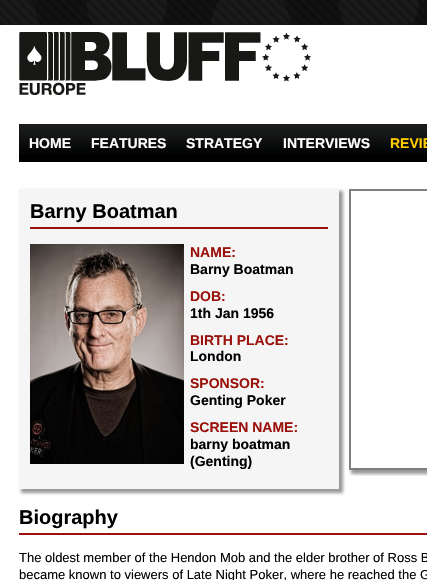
#include "include/core/SkBlurTypes.h"
#include "include/core/SkCanvas.h"
#include "include/core/SkData.h"
#include "include/core/SkFont.h"
#include "include/core/SkFontMgr.h"
#include "include/core/SkImage.h"
#include "include/core/SkMaskFilter.h"
#include "include/core/SkPaint.h"
#include "include/core/SkPathBuilder.h"
#include "include/core/SkTextBlob.h"
#include "include/effects/SkDashPathEffect.h"
#include "include/effects/SkGradientShader.h"
#include "include/utils/SkParsePath.h"

extern sk_sp<SkFontMgr> fontMgr;

void draw(SkCanvas* canvas) {
    SkPaint p;
    p.setAntiAlias(true);
    auto font = [&](const char* family, int weight, float size, bool italic = false) {
        SkFontStyle style(weight, SkFontStyle::kNormal_Width,
            italic ? SkFontStyle::kItalic_Slant : SkFontStyle::kUpright_Slant);
        SkFont result(fontMgr->matchFamilyStyle(family, style), size);
        result.setSubpixel(true);
        return result;
    };
    auto drawPhoto = [&](const char* path, float l, float t, float r, float b) {
        auto image = SkImages::DeferredFromEncodedData(SkData::MakeFromFileName(path));
        canvas->drawImageRect(image, SkRect::MakeLTRB(l, t, r, b), SkSamplingOptions());
    };
    canvas->clear(0xFFFFFFFF);
    drawPhoto("media/1.png", 0, 0, 427, 25);
    drawPhoto("media/2.png", 0, 0, 427, 25);
    drawPhoto("media/3.png", 19, 32, 311, 95);
    p.setColor(0xFF000000);
    canvas->drawRect(SkRect::MakeLTRB(19, 154, 427, 162), p);
    drawPhoto("media/4.png", 19, 124, 427, 154);
    auto font1 = font("Liberation Sans", 700, 14);
    p.setColor(0xFFFFFFFF);
    {
        const struct { const char* s; float x, y; } items[] = {
            {"HOME", 29, 148},
            {"FEATURES", 91, 148},
            {"STRATEGY", 186, 148},
            {"INTERVIEWS", 283, 148},
        };
        for (auto [s, x, y] : items) {
            canvas->drawString(s, x, y, font1, p);
        }
    }
    p.setColor(0xFFFFCC00);
    canvas->drawString("REVIE", 390, 148, font1, p);
    p.setColor(0x66000000);
    p.setMaskFilter(SkMaskFilter::MakeBlur(kNormal_SkBlurStyle, 1.5f));
    canvas->drawRect(SkRect::MakeLTRB(21, 191, 343, 493), p);
    p.setMaskFilter(nullptr);
    p.setColor(0xFFF5F5F5);
    canvas->drawRect(SkRect::MakeLTRB(19, 189, 339, 489), p);
    p.setColor(0xFF9A110B);
    canvas->drawRect(SkRect::MakeLTRB(30, 227, 328, 229), p);
    auto font2 = font("Liberation Sans", 700, 20);
    p.setColor(0xFF000000);
    canvas->drawString("Barny Boatman", 30, 218, font2, p);
    drawPhoto("media/5.png", 30, 244, 184, 464);
    p.setColor(0xFF9A110B);
    canvas->drawString("NAME:", 190, 257, font1, p);
    p.setColor(0xFF000000);
    canvas->drawString("Barny Boatman", 190, 274, font1, p);
    p.setColor(0xFF9A110B);
    canvas->drawString("DOB:", 190, 301, font1, p);
    p.setColor(0xFF000000);
    canvas->drawString("1th Jan 1956", 190, 318, font1, p);
    p.setColor(0xFF9A110B);
    canvas->drawString("BIRTH PLACE:", 190, 345, font1, p);
    p.setColor(0xFF000000);
    canvas->drawString("London", 190, 361, font1, p);
    p.setColor(0xFF9A110B);
    canvas->drawString("SPONSOR:", 190, 388, font1, p);
    p.setColor(0xFF000000);
    canvas->drawString("Genting Poker", 190, 405, font1, p);
    p.setColor(0xFF9A110B);
    canvas->drawString("SCREEN NAME:", 190, 432, font1, p);
    p.setColor(0xFF000000);
    canvas->drawString("barny boatman", 190, 449, font1, p);
    canvas->drawString("(Genting)", 190, 466, font1, p);
    canvas->save();
    canvas->clipRect(SkRect::MakeLTRB(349, 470, 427, 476));
    p.setColor(0x66000000);
    p.setMaskFilter(SkMaskFilter::MakeBlur(kNormal_SkBlurStyle, 1.5f));
    canvas->drawRect(SkRect::MakeLTRB(351, 191, 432, 474), p);
    p.setMaskFilter(nullptr);
    canvas->restore();
    p.setStyle(SkPaint::kStroke_Style);
    p.setStrokeWidth(2);
    p.setColor(0xFF7E7E7E);
    canvas->drawRect(SkRect::MakeLTRB(350, 190, 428, 469), p);
    p.setStyle(SkPaint::kFill_Style);
    p.setColor(0xFF9A110B);
    canvas->drawRect(SkRect::MakeLTRB(19, 533, 427, 535), p);
    p.setColor(0xFF000000);
    canvas->drawString("Biography", 19, 524, font2, p);
    auto font3 = font("Liberation Sans", 400, 13);
    canvas->drawString("The oldest member of the Hendon Mob and the elder brother of Ross B", 19, 562, font3, p);
    canvas->drawString("became known to viewers of Late Night Poker, where he reached the G", 19, 579, font3, p);
}
